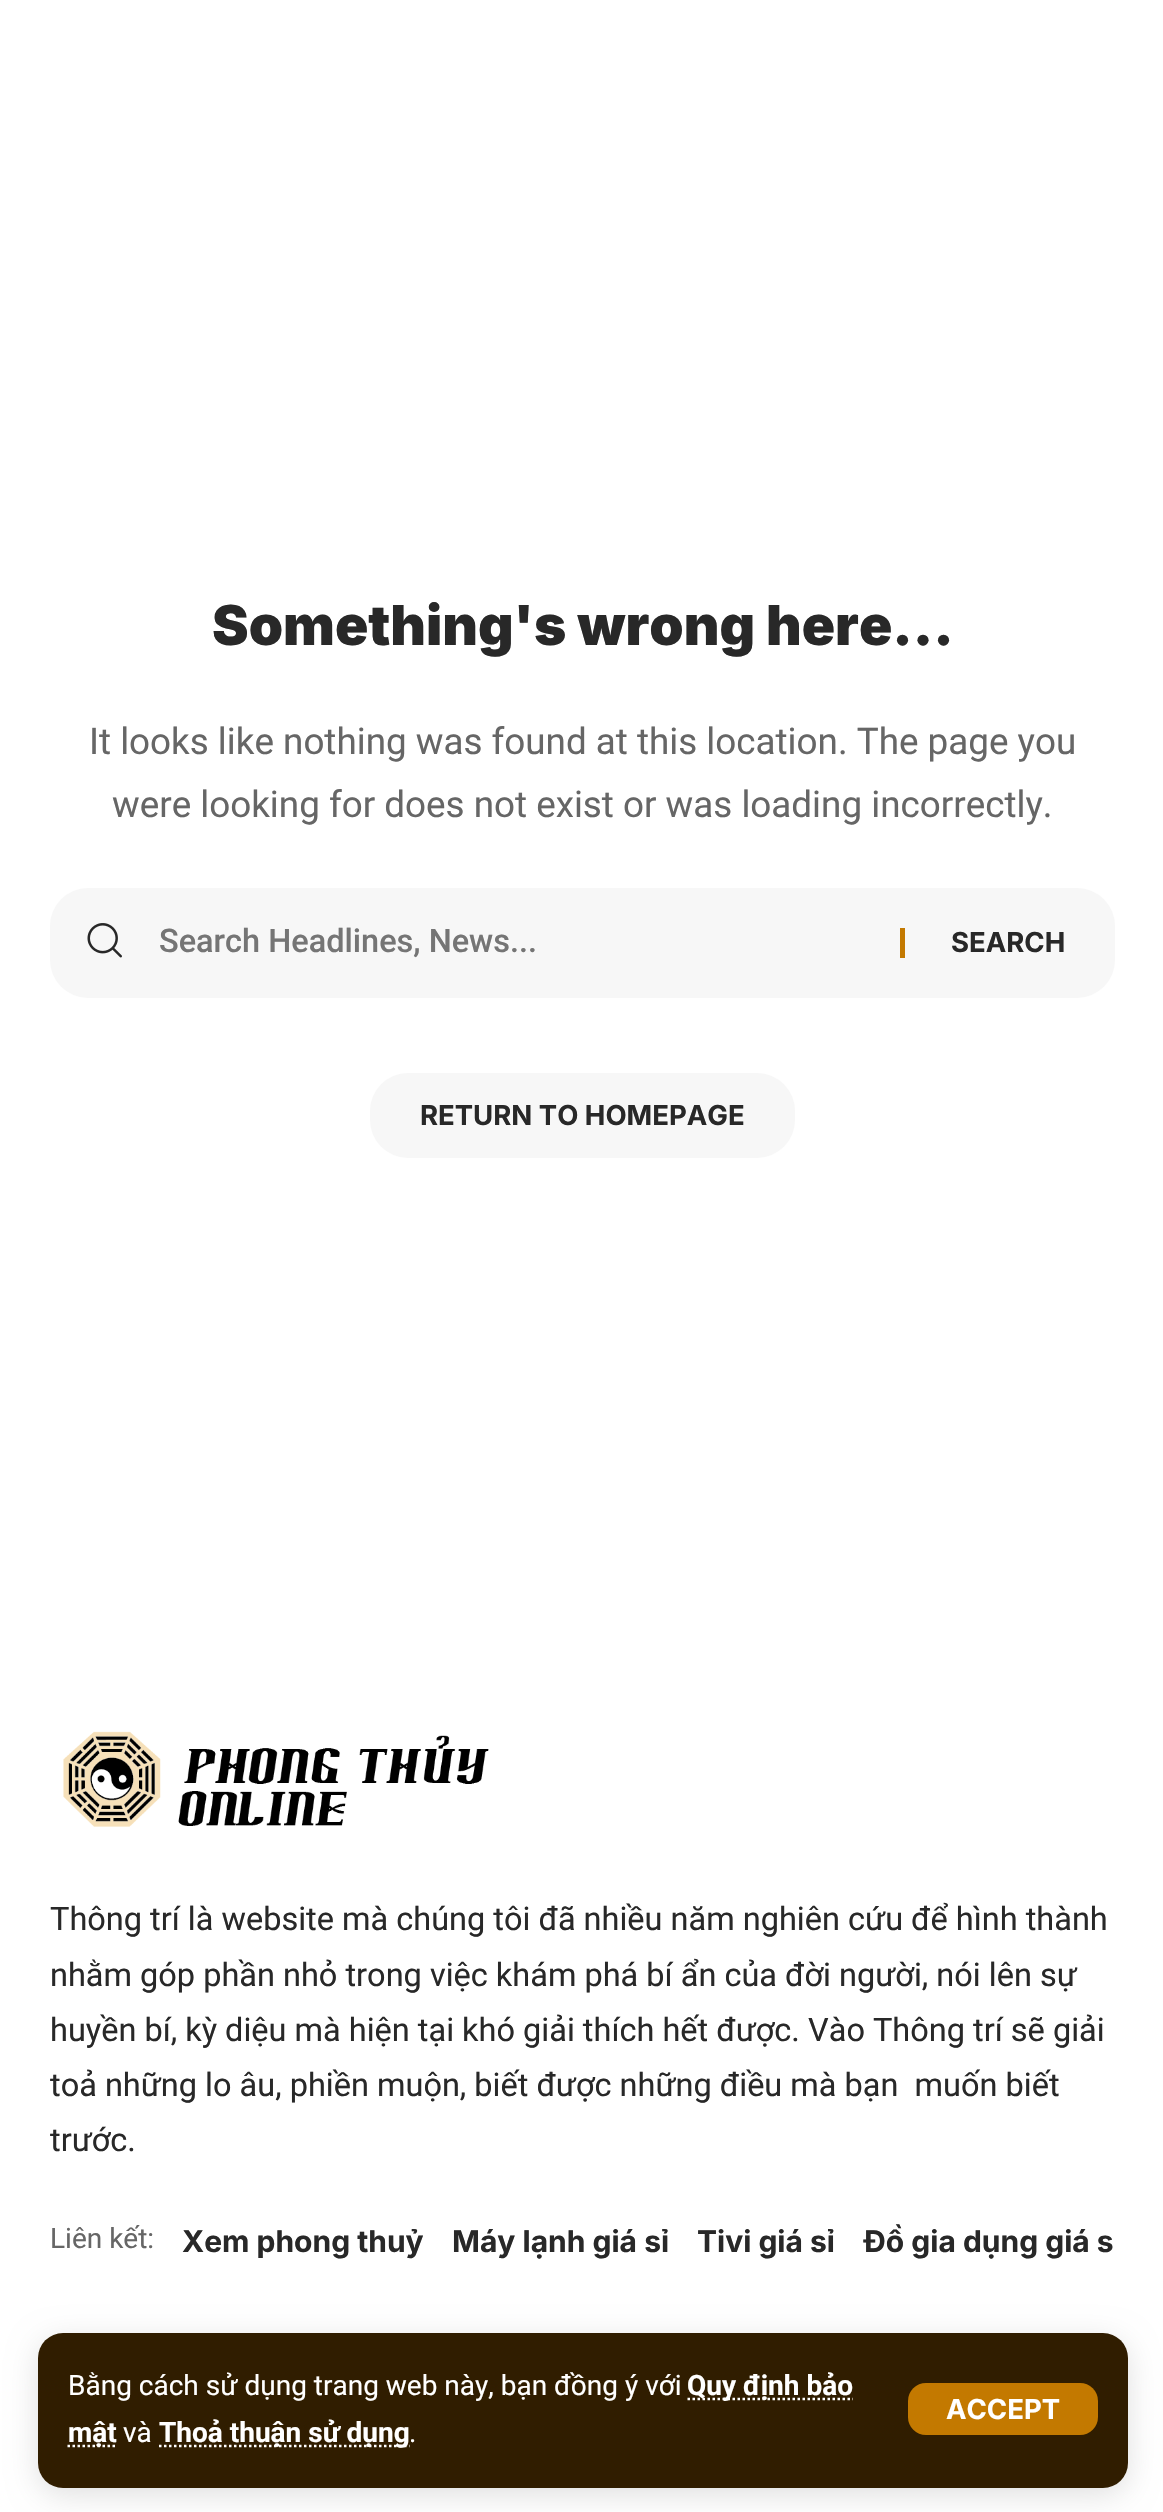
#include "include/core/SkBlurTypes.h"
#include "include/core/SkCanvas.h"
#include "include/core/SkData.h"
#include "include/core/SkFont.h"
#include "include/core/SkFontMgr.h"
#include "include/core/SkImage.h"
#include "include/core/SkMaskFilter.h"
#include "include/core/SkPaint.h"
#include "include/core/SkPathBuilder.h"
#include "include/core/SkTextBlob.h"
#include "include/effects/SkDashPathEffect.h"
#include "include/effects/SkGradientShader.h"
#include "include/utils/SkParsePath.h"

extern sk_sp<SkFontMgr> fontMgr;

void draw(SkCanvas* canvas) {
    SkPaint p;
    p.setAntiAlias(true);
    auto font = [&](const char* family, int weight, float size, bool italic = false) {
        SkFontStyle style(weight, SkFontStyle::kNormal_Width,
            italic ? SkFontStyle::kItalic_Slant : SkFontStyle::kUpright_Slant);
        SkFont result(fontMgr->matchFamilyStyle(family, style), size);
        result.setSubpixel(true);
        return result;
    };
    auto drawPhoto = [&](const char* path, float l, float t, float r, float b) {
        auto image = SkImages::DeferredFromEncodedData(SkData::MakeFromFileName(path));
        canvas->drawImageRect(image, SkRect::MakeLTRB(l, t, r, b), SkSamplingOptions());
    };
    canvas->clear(0xFFFFFFFF);
    auto font1 = font("Inter", 900, 55);
    p.setColor(0xFF282828);
    canvas->drawString("Something's wrong here...", 212, 645, font1, p);
    auto font2 = font("Roboto", 400, 36.8f);
    p.setColor(0xFF666666);
    canvas->drawString("It looks like nothing was found at this location. The page you", 89, 754, font2, p);
    canvas->drawString("were looking for does not exist or was loading incorrectly.", 112, 817, font2, p);
    p.setColor(0xFFF7F7F7);
    canvas->drawRoundRect(SkRect::MakeLTRB(50, 888, 1115, 998), 38, 38, p);
    drawPhoto("media/1.png", 87, 923, 122, 958);
    auto font3 = font("Roboto", 500, 32.5f);
    p.setColor(0xFF757575);
    canvas->drawString("Search Headlines, News...", 159, 952, font3, p);
    p.setColor(0xFFC37900);
    canvas->drawRect(SkRect::MakeLTRB(900, 928, 905, 958), p);
    auto font4 = font("Inter", 700, 27.5f);
    p.setColor(0xFF282828);
    canvas->drawString("SEARCH", 951, 952, font4, p);
    p.setColor(0xFFF7F7F7);
    canvas->drawRoundRect(SkRect::MakeLTRB(370, 1073, 795, 1158), 38, 38, p);
    p.setColor(0xFF282828);
    canvas->drawString("RETURN TO HOMEPAGE", 420, 1125, font4, p);
    drawPhoto("media/2.png", 63, 1731, 489, 1827);
    auto font5 = font("Roboto", 400, 32.5f);
    {
        const struct { const char* s; float x, y; } items[] = {
            {"Thông trí là website mà chúng tôi đã nhiều năm nghiên cứu để hình thành", 50, 1930},
            {"nhằm góp phần nhỏ trong việc khám phá bí ẩn của đời người, nói lên sự", 50, 1986},
            {"huyền bí, kỳ diệu mà hiện tại khó giải thích hết được. Vào Thông trí sẽ giải", 50, 2041},
            {"toả những lo âu, phiền muộn, biết được những điều mà bạn  muốn biết", 50, 2096},
            {"trước.", 50, 2151},
        };
        for (auto [s, x, y] : items) {
            canvas->drawString(s, x, y, font5, p);
        }
    }
    auto font6 = font("Roboto", 400, 28);
    p.setColor(0xFF666666);
    canvas->drawString("Liên kết:", 50, 2248, font6, p);
    auto font7 = font("Inter", 700, 30);
    p.setColor(0xFF282828);
    {
        const struct { const char* s; float x, y; } items[] = {
            {"Xem phong thuỷ", 182, 2252},
            {"Máy lạnh giá sỉ", 452, 2252},
            {"Tivi giá sỉ", 697, 2252},
            {"Đồ gia dụng giá s", 863, 2252},
        };
        for (auto [s, x, y] : items) {
            canvas->drawString(s, x, y, font7, p);
        }
    }
    p.setColor(0x1F000000);
    p.setMaskFilter(SkMaskFilter::MakeBlur(kNormal_SkBlurStyle, 15));
    canvas->drawRoundRect(SkRect::MakeLTRB(38, 2340, 1128, 2495), 25, 25, p);
    p.setMaskFilter(nullptr);
    p.setColor(0xFF301D00);
    canvas->drawRoundRect(SkRect::MakeLTRB(38, 2333, 1128, 2488), 25, 25, p);
    p.setColor(0xFFFFFFFF);
    canvas->drawString("Bằng cách sử dụng trang web này, bạn đồng ý với", 68, 2395, font6, p);
    p.setStyle(SkPaint::kStroke_Style);
    p.setStrokeWidth(2.5f);
    p.setPathEffect(SkDashPathEffect::Make({{2.5f, 2.5f}}, 0));
    canvas->drawPath(SkPathBuilder().moveTo(687.5f, 2399).lineTo(853, 2399).detach(), p);
    p.setPathEffect(nullptr);
    auto font8 = font("Roboto", 700, 28);
    p.setStyle(SkPaint::kFill_Style);
    canvas->drawString("Quy định bảo", 687, 2395, font8, p);
    p.setStyle(SkPaint::kStroke_Style);
    p.setPathEffect(SkDashPathEffect::Make({{2.5f, 2.5f}}, 0));
    canvas->drawPath(SkPathBuilder().moveTo(67.5f, 2446).lineTo(116, 2446).detach(), p);
    p.setPathEffect(nullptr);
    p.setStyle(SkPaint::kFill_Style);
    canvas->drawString("mật", 68, 2442, font8, p);
    canvas->drawString("và", 123, 2442, font6, p);
    p.setStyle(SkPaint::kStroke_Style);
    p.setPathEffect(SkDashPathEffect::Make({{2.5f, 2.5f}}, 0));
    canvas->drawPath(SkPathBuilder().moveTo(159, 2446).lineTo(409.5f, 2446).detach(), p);
    p.setPathEffect(nullptr);
    p.setStyle(SkPaint::kFill_Style);
    canvas->drawString("Thoả thuận sử dụng", 159, 2442, font8, p);
    canvas->drawString(".", 409, 2442, font6, p);
    p.setColor(0xFFC37900);
    canvas->drawRoundRect(SkRect::MakeLTRB(908, 2383, 1098, 2435), 18, 18, p);
    p.setColor(0xFFFFFFFF);
    canvas->drawString("ACCEPT", 946, 2419, font4, p);
}
